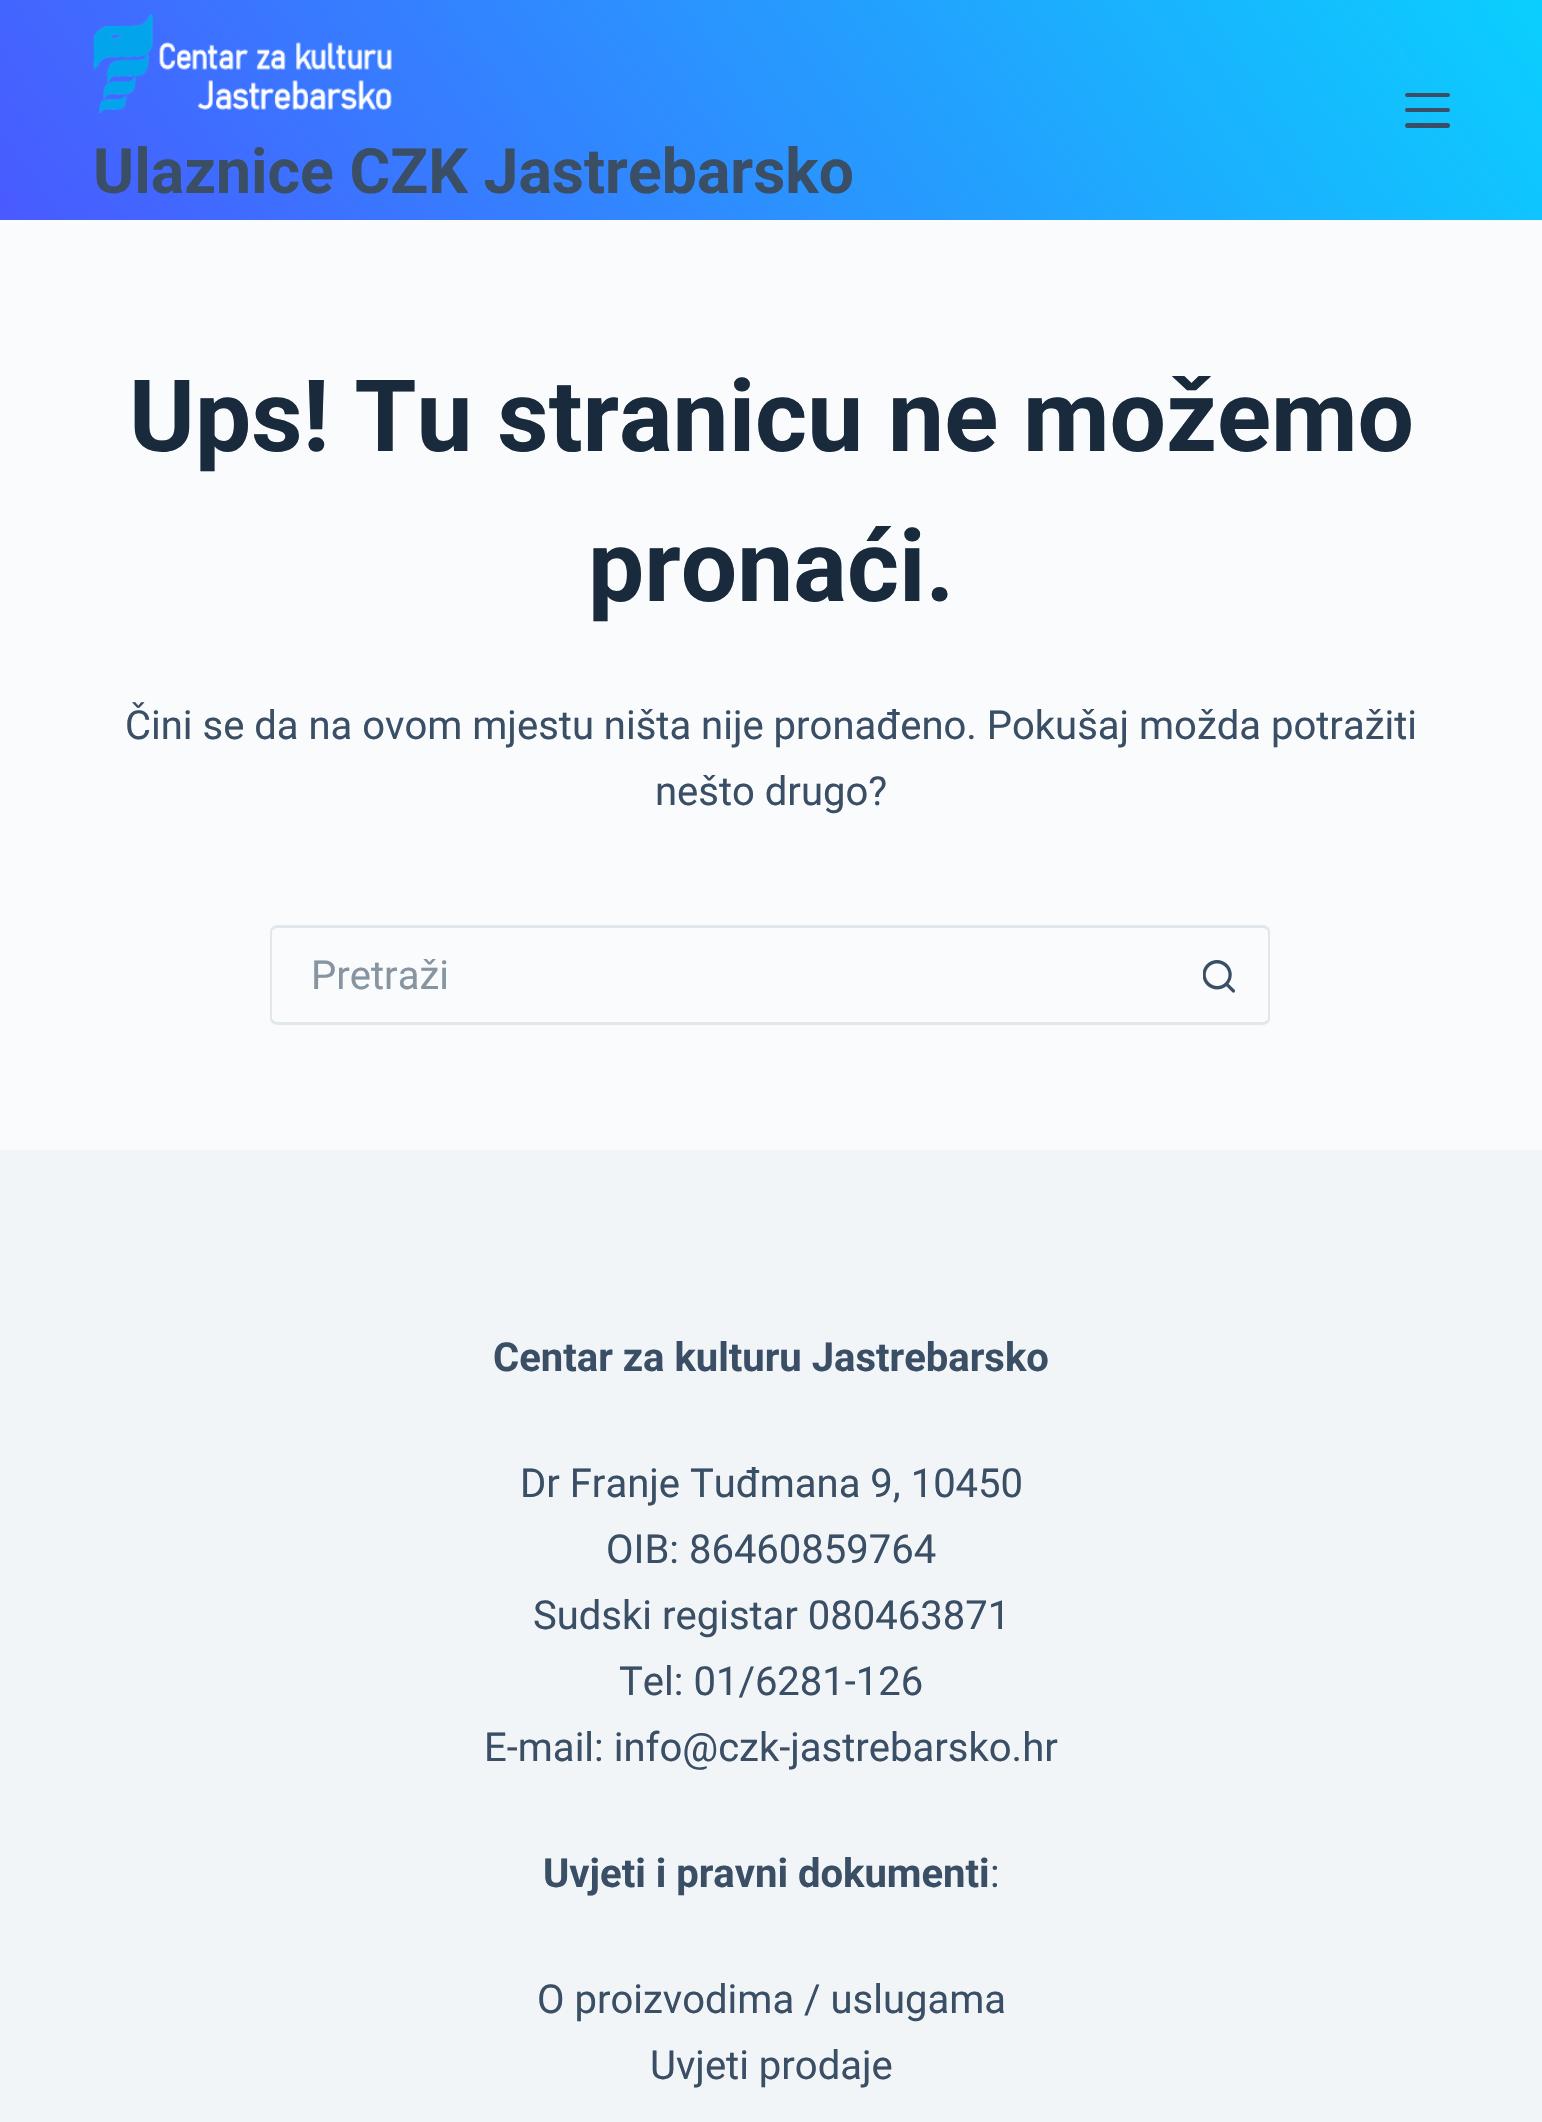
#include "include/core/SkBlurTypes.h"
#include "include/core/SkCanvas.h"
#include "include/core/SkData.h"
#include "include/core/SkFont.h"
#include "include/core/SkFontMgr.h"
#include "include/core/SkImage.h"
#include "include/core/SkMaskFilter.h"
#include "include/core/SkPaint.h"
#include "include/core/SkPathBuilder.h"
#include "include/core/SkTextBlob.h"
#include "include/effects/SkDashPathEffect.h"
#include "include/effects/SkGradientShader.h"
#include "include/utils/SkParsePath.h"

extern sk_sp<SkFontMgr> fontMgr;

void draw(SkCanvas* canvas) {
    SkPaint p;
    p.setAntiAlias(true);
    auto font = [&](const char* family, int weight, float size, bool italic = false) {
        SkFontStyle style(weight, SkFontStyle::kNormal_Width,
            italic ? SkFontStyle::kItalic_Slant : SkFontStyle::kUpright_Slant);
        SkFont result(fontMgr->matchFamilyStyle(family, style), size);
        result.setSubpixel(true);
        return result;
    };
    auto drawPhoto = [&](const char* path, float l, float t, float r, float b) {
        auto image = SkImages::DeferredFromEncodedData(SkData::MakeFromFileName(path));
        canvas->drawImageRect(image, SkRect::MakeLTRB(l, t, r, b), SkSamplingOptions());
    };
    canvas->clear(0xFFFAFBFC);
    {
        const SkColor colors[] = {0xFF0ACFFE, 0xFF495AFF};
        const float stops[] = {0, 1};
        const SkPoint ends[] = {{1340, -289}, {202, 509}};
        p.setShader(SkGradientShader::MakeLinear(ends, colors, stops, 2, SkTileMode::kClamp));
        p.setAlpha(255);
    }
    canvas->drawRect(SkRect::MakeLTRB(0, 0, 1542, 220), p);
    p.setShader(nullptr);
    p.setColor(0xFF3A4F66);
    canvas->drawRoundRect(SkRect::MakeLTRB(1405, 93, 1450, 97), 2, 2, p);
    canvas->drawRoundRect(SkRect::MakeLTRB(1405, 108, 1450, 112), 2, 2, p);
    canvas->drawRoundRect(SkRect::MakeLTRB(1405, 123, 1450, 128), 2.5f, 2.5f, p);
    drawPhoto("media/1.png", 93, 14, 392, 114);
    auto font1 = font("Roboto", 700, 62.5f);
    canvas->drawString("Ulaznice CZK Jastrebarsko", 93, 193, font1, p);
    auto font2 = font("Roboto", 700, 100);
    p.setColor(0xFF192A3D);
    canvas->drawString("Ups! Tu stranicu ne možemo", 129, 451, font2, p);
    canvas->drawString("pronaći.", 588, 601, font2, p);
    auto font3 = font("Roboto", 400, 40);
    p.setColor(0xFF3A4F66);
    canvas->drawString("Čini se da na ovom mjestu ništa nije pronađeno. Pokušaj možda potražiti", 125, 739, font3, p);
    canvas->drawString("nešto drugo?", 655, 805, font3, p);
    p.setColor(0xFFE1E8ED);
    canvas->drawPath(SkPathBuilder(SkPathFillType::kEvenOdd).moveTo(278, 925).lineTo(1170, 925).lineTo(1170, 1025).lineTo(278, 1025).cubicTo(273, 1025, 270, 1022, 270, 1018).lineTo(270, 932).cubicTo(270, 928, 273, 925, 278, 925).close().moveTo(278, 928).lineTo(1170, 928).lineTo(1170, 1022).lineTo(278, 1022).cubicTo(275, 1022, 272, 1020, 272, 1018).lineTo(272, 932).cubicTo(272, 930, 275, 928, 278, 928).close().detach(), p);
    p.setColor(0xFF8794A2);
    canvas->drawString("Pretraži", 311, 989, font3, p);
    p.setColor(0xFFE1E8ED);
    canvas->drawPath(SkPathBuilder(SkPathFillType::kEvenOdd).moveTo(1170, 925).lineTo(1262, 925).cubicTo(1267, 925, 1270, 928, 1270, 932).lineTo(1270, 1018).cubicTo(1270, 1022, 1267, 1025, 1262, 1025).lineTo(1170, 1025).close().moveTo(1170, 928).lineTo(1262, 928).cubicTo(1265, 928, 1268, 930, 1268, 932).lineTo(1268, 1018).cubicTo(1268, 1020, 1265, 1022, 1262, 1022).lineTo(1170, 1022).close().detach(), p);
    drawPhoto("media/2.png", 1203, 960, 1235, 993);
    p.setColor(0xFFF2F5F7);
    canvas->drawRect(SkRect::MakeLTRB(0, 1150, 1542, 2122), p);
    auto font4 = font("Roboto", 700, 40);
    p.setColor(0xFF3A4F66);
    canvas->drawString("Centar za kulturu Jastrebarsko", 493, 1371, font4, p);
    {
        const struct { const char* s; float x, y; } items[] = {
            {"Dr Franje Tuđmana 9, 10450", 520, 1497},
            {"OIB: 86460859764", 606, 1563},
            {"Sudski registar 080463871", 533, 1629},
            {"Tel: 01/6281-126", 619, 1695},
            {"E-mail: info@czk-jastrebarsko.hr", 484, 1761},
        };
        for (auto [s, x, y] : items) {
            canvas->drawString(s, x, y, font3, p);
        }
    }
    canvas->drawString("Uvjeti i pravni dokumenti", 543, 1887, font4, p);
    {
        const struct { const char* s; float x, y; } items[] = {
            {":", 990, 1887},
            {"O proizvodima / uslugama", 537, 2013},
            {"Uvjeti prodaje", 650, 2079},
        };
        for (auto [s, x, y] : items) {
            canvas->drawString(s, x, y, font3, p);
        }
    }
}
